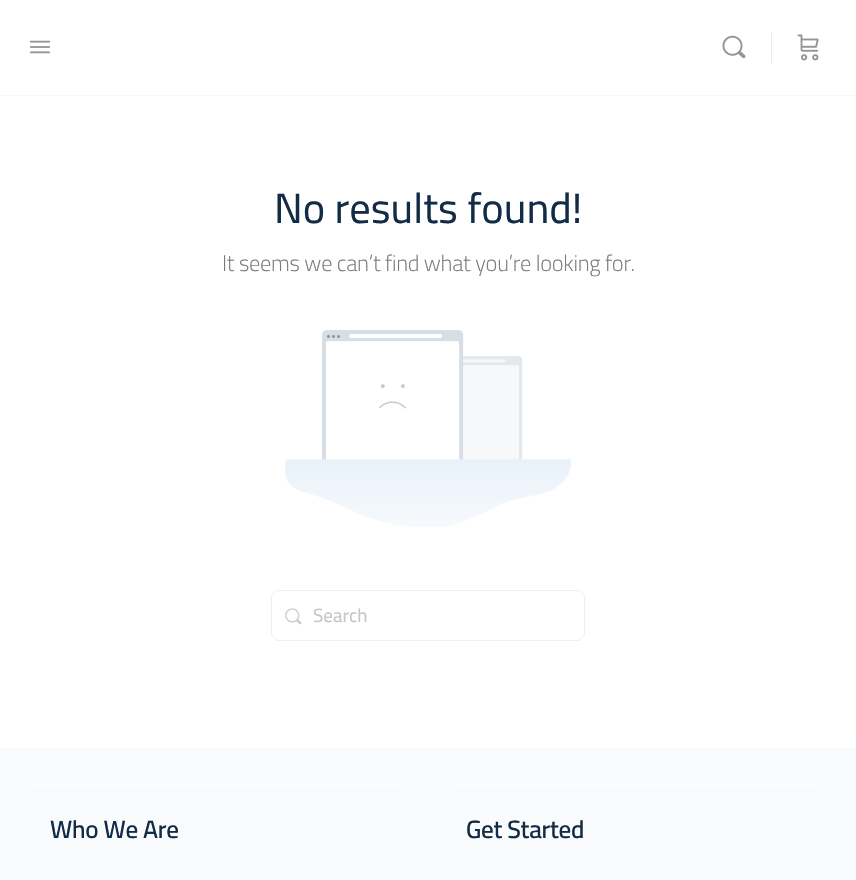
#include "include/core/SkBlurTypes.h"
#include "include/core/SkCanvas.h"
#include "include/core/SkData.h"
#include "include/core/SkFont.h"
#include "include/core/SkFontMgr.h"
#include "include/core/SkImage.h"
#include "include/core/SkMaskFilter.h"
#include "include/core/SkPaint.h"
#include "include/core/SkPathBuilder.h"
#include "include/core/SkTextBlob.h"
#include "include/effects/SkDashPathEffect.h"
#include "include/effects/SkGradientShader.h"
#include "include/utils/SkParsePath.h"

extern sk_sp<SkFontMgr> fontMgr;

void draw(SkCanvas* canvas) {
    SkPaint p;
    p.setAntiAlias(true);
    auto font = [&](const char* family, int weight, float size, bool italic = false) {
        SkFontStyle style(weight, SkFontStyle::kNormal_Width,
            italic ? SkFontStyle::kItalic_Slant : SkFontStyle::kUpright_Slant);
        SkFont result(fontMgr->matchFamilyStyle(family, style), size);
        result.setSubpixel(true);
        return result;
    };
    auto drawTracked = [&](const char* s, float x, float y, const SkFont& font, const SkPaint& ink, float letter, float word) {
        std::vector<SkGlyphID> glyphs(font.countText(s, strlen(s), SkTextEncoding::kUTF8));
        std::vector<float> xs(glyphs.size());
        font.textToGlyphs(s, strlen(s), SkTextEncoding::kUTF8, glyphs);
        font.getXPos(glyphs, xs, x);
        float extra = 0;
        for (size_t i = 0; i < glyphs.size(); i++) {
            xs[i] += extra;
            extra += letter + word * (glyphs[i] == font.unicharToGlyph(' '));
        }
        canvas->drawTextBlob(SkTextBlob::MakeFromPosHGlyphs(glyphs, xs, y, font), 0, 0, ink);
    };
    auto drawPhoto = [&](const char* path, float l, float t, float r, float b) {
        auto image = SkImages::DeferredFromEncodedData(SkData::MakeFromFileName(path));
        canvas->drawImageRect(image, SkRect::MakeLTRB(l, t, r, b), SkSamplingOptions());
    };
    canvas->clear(0xFFFFFFFF);
    p.setColor(0xFFF6F6F8);
    canvas->drawRect(SkRect::MakeLTRB(0, 95, 856, 96), p);
    drawPhoto("media/1.png", 30, 40, 50, 54);
    drawPhoto("media/2.png", 722, 35, 746, 59);
    p.setColor(0xFFE9EAEA);
    canvas->drawRect(SkRect::MakeLTRB(771, 33, 772, 63), p);
    drawPhoto("media/3.png", 797, 34, 819, 61);
    auto font1 = font("Cairo", 400, 42.5f);
    p.setColor(0xFF122B46);
    canvas->drawString("No results found!", 274, 223, font1, p);
    auto font2 = font("Cairo", 300, 22.5f);
    p.setColor(0xFF7C7C7C);
    drawTracked("It seems we can’t find what you’re looking for.", 222, 271, font2, p, -0.3f, 0);
    drawPhoto("media/4.png", 285, 330, 571, 528);
    p.setStyle(SkPaint::kStroke_Style);
    p.setStrokeWidth(1);
    p.setColor(0xFFEFEFEF);
    canvas->drawRoundRect(SkRect::MakeLTRB(271.5f, 590.5f, 584.5f, 640.5f), 7.5f, 7.5f, p);
    drawPhoto("media/5.png", 285, 608, 302, 625);
    auto font3 = font("Cairo", 400, 19);
    p.setStyle(SkPaint::kFill_Style);
    p.setColor(0xFFC3C6C9);
    canvas->drawString("Search", 313, 622, font3, p);
    p.setColor(0xFFFAFBFD);
    canvas->drawRect(SkRect::MakeLTRB(0, 748, 856, 880), p);
    p.setColor(0xFFFFFFFF);
    canvas->drawPath(SkPathBuilder().moveTo(38, 786).lineTo(404, 786).cubicTo(411, 786, 416, 792, 416, 799).cubicTo(416, 792, 411, 785, 403, 785).lineTo(35, 785).cubicTo(29, 787, 25, 793, 25, 799).cubicTo(25, 792, 31, 786, 38, 786).close().detach(), p);
    auto font4 = font("Cairo", 600, 25);
    p.setColor(0xFF122B46);
    drawTracked("Who We Are", 50, 838, font4, p, -0.3f, 0);
    p.setColor(0xFFFFFFFF);
    canvas->drawPath(SkPathBuilder().moveTo(454, 786).lineTo(819, 786).cubicTo(826, 786, 831, 792, 831, 799).cubicTo(831, 793, 827, 787, 821, 785).lineTo(454, 785).cubicTo(446, 785, 441, 792, 441, 799).cubicTo(441, 792, 447, 786, 454, 786).close().detach(), p);
    p.setColor(0xFF122B46);
    drawTracked("Get Started", 466, 838, font4, p, -0.3f, 0);
}
